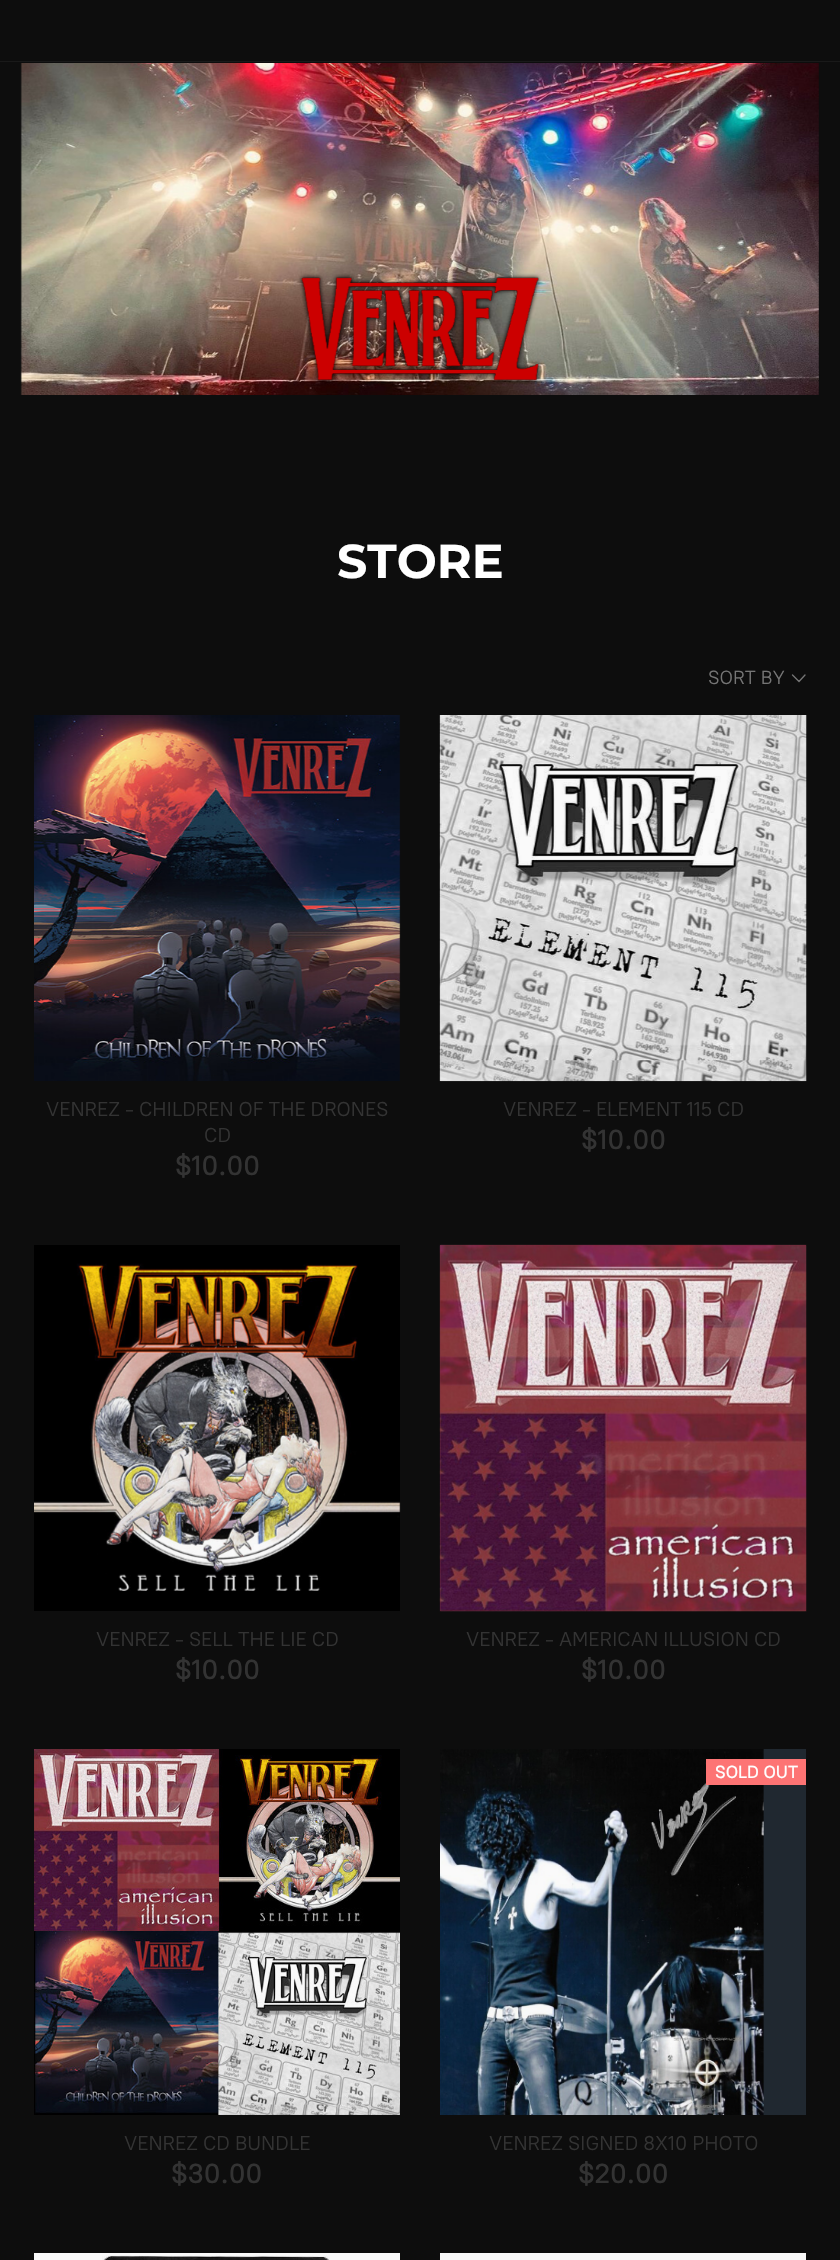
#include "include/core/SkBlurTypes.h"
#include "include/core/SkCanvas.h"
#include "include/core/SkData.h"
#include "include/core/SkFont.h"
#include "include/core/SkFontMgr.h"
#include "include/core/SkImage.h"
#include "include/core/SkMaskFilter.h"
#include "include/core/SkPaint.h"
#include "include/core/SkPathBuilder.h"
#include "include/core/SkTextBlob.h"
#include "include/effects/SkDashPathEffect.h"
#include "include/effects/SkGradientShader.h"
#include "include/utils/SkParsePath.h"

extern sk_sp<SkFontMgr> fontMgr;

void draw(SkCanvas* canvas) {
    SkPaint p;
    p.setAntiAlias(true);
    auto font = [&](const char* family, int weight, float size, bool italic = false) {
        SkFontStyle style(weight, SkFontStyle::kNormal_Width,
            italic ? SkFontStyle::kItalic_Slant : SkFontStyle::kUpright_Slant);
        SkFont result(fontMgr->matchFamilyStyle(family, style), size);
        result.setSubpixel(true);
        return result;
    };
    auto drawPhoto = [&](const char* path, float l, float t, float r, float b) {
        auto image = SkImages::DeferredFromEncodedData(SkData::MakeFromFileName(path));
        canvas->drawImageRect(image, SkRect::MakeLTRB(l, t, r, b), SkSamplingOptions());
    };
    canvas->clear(0xFF0D0D0D);
    p.setColor(0xFF191919);
    canvas->drawRect(SkRect::MakeLTRB(0, 61, 840, 62), p);
    drawPhoto("media/1.png", 20, 63, 819, 395);
    auto font1 = font("Montserrat", 700, 47.5f);
    p.setColor(0xFFFFFFFF);
    canvas->drawString("STORE", 337, 578, font1, p);
    auto font2 = font("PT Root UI", 400, 19);
    p.setColor(0xFF757575);
    canvas->drawString("SORT BY", 708, 684, font2, p);
    p.setStyle(SkPaint::kStroke_Style);
    p.setStrokeWidth(1.3f);
    p.setStrokeCap(SkPaint::kRound_Cap);
    p.setStrokeJoin(SkPaint::kRound_Join);
    canvas->drawPath(SkPathBuilder().moveTo(805, 675).lineTo(799, 681.5f).lineTo(792.5f, 675).detach(), p);
    drawPhoto("media/2.png", 34, 715, 401, 1081);
    auto font3 = font("PT Root UI", 400, 20);
    p.setStyle(SkPaint::kFill_Style);
    p.setColor(0xFF333333);
    canvas->drawString("VENREZ - CHILDREN OF THE DRONES", 46, 1116, font3, p);
    canvas->drawString("CD", 204, 1142, font3, p);
    auto font4 = font("PT Root UI", 500, 27.5f);
    canvas->drawString("$10.00", 175, 1175, font4, p);
    p.setColor(0xFFCECECE);
    canvas->drawRect(SkRect::MakeLTRB(440, 715, 806, 1081), p);
    drawPhoto("media/3.png", 439, 715, 807, 1082);
    p.setColor(0xFF333333);
    canvas->drawString("VENREZ - ELEMENT 115 CD", 503, 1116, font3, p);
    canvas->drawString("$10.00", 581, 1149, font4, p);
    p.setColor(0xFF000000);
    canvas->drawRect(SkRect::MakeLTRB(34, 1245, 400, 1611), p);
    drawPhoto("media/4.png", 34, 1263, 401, 1591);
    p.setColor(0xFF333333);
    canvas->drawString("VENREZ - SELL THE LIE CD", 96, 1646, font3, p);
    canvas->drawString("$10.00", 175, 1679, font4, p);
    p.setColor(0xFF722B3B);
    canvas->drawRect(SkRect::MakeLTRB(440, 1245, 806, 1611), p);
    drawPhoto("media/5.png", 439, 1244, 807, 1612);
    p.setColor(0xFF333333);
    canvas->drawString("VENREZ - AMERICAN ILLUSION CD", 466, 1646, font3, p);
    canvas->drawString("$10.00", 581, 1679, font4, p);
    drawPhoto("media/6.png", 34, 1749, 400, 2115);
    canvas->drawString("VENREZ CD BUNDLE", 124, 2150, font3, p);
    canvas->drawString("$30.00", 171, 2183, font4, p);
    p.setColor(0xFF202830);
    canvas->drawRect(SkRect::MakeLTRB(763, 1749, 806, 2115), p);
    drawPhoto("media/7.png", 440, 1749, 764, 2115);
    p.setColor(0xFFFD7474);
    canvas->drawRect(SkRect::MakeLTRB(706, 1759, 806, 1785), p);
    auto font5 = font("PT Root UI", 500, 17.5f);
    p.setColor(0xFFFFFFFF);
    canvas->drawString("SOLD OUT", 715, 1778, font5, p);
    p.setColor(0xFF333333);
    canvas->drawString("VENREZ SIGNED 8X10 PHOTO", 489, 2150, font3, p);
    canvas->drawString("$20.00", 578, 2183, font4, p);
    p.setColor(0xFFFAFAFA);
    canvas->drawRect(SkRect::MakeLTRB(34, 2253, 400, 2260), p);
    drawPhoto("media/8.png", 102, 2255, 330, 2260);
    p.setColor(0xFFF9F9F9);
    canvas->drawRect(SkRect::MakeLTRB(440, 2253, 806, 2260), p);
}
